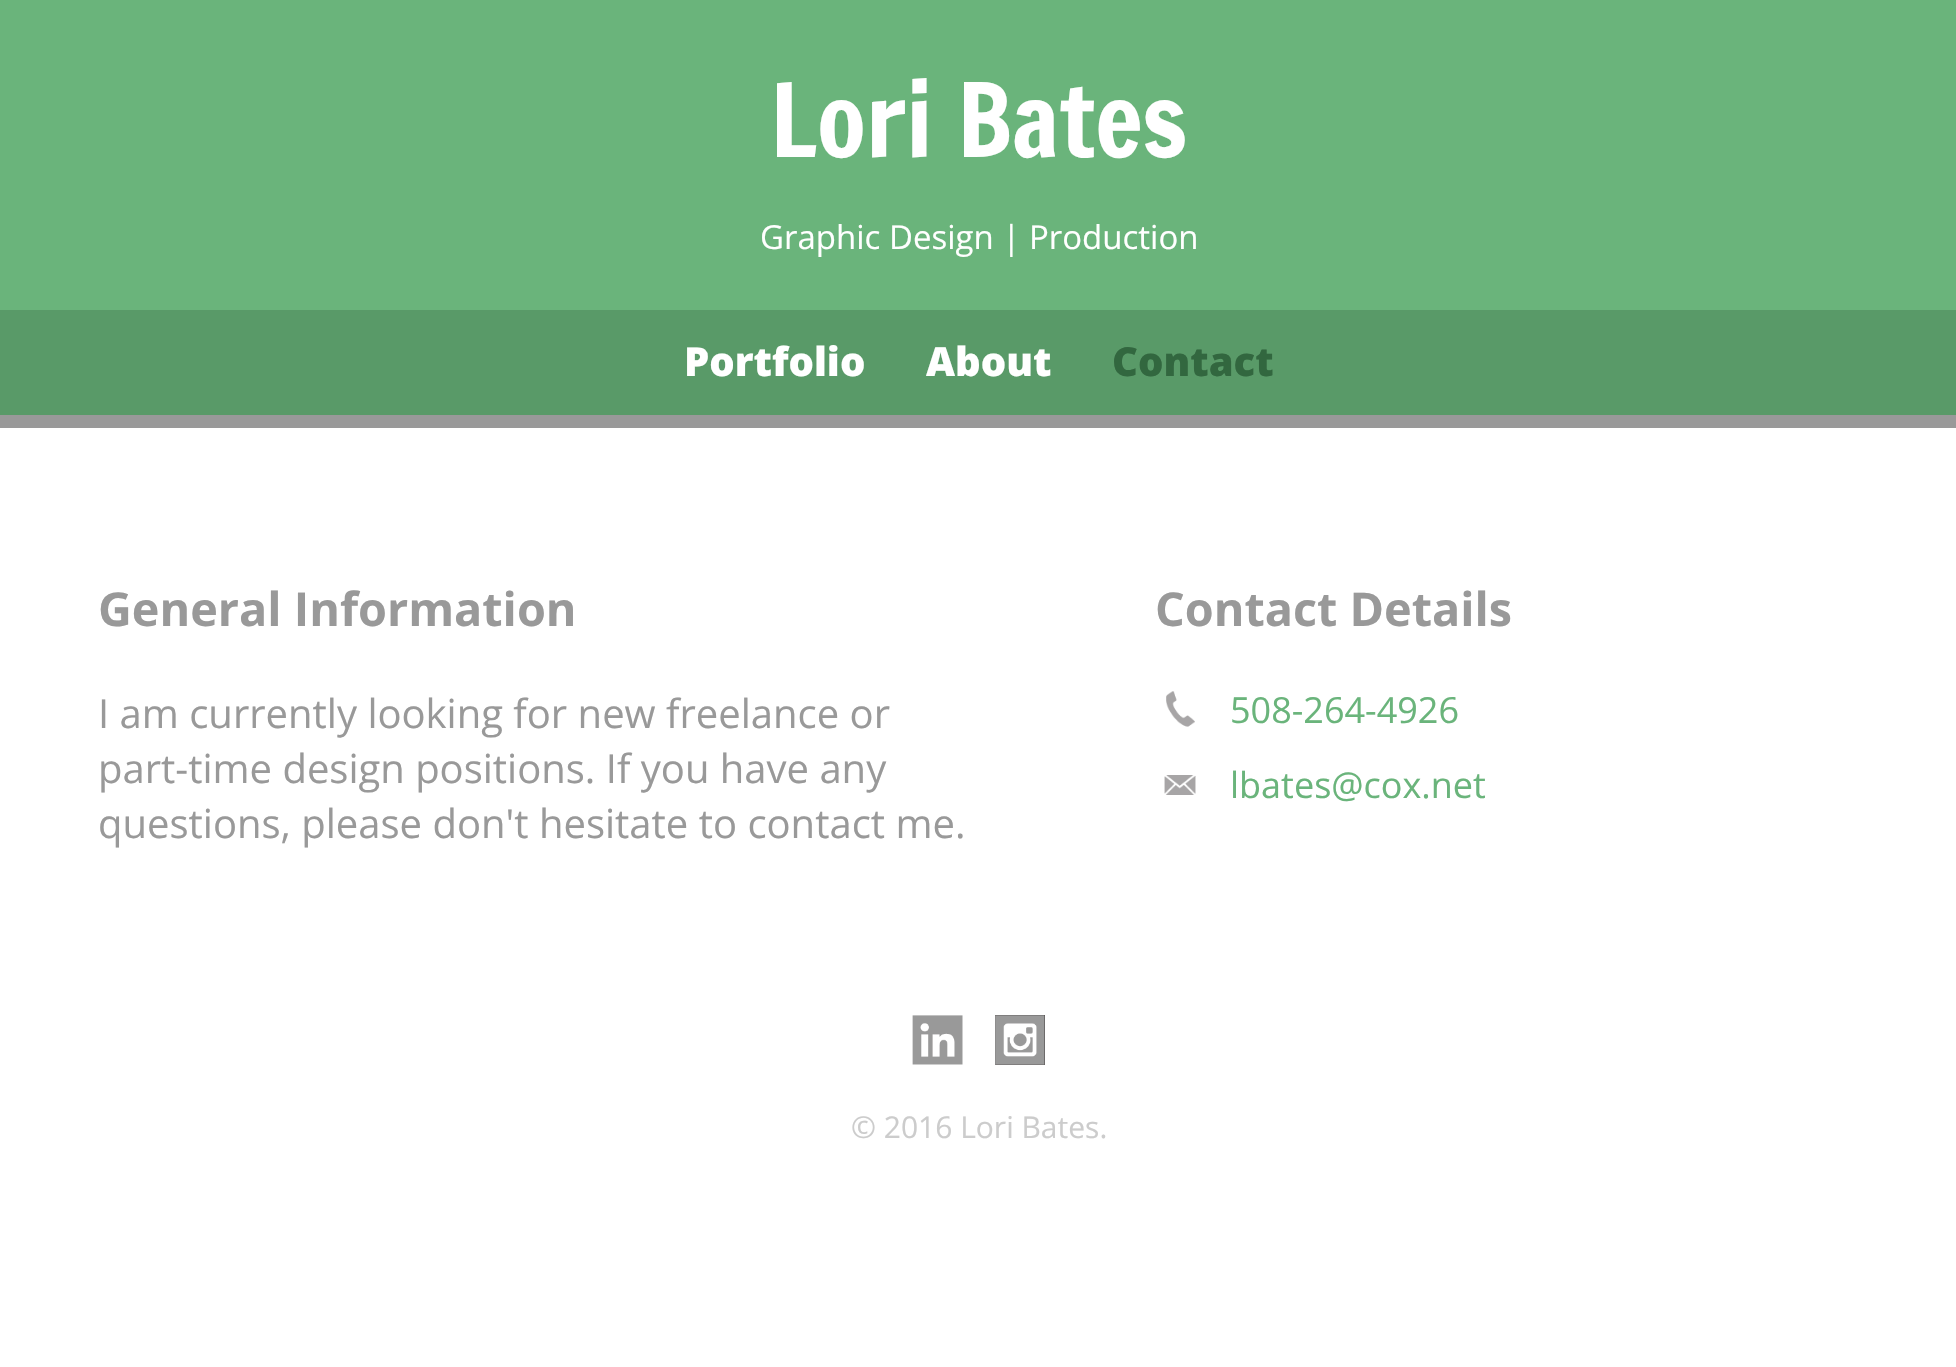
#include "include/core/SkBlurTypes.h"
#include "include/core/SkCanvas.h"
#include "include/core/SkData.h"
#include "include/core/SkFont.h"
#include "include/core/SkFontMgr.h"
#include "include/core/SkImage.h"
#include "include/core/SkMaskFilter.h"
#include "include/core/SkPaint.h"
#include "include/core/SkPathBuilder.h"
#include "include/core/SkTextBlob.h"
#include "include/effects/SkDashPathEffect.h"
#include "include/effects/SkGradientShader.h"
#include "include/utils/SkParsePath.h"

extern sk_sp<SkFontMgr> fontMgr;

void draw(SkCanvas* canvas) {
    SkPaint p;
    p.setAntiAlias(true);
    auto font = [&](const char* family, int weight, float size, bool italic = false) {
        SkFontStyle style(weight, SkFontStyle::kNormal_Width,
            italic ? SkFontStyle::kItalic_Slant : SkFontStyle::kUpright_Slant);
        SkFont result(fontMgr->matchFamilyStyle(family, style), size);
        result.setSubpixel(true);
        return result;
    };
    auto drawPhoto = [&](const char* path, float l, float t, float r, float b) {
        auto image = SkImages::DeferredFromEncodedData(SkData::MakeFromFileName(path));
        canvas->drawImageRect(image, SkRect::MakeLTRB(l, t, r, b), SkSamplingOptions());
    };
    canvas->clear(0xFFFFFFFF);
    p.setColor(0xFF6AB47B);
    canvas->drawRect(SkRect::MakeLTRB(0, 0, 1956, 310), p);
    p.setColor(0xFF999999);
    canvas->drawRect(SkRect::MakeLTRB(0, 415, 1956, 428), p);
    auto font1 = font("Francois One", 400, 100);
    p.setColor(0xFFFFFFFF);
    canvas->drawString("Lori Bates", 770, 157, font1, p);
    auto font2 = font("Open Sans", 400, 33);
    canvas->drawString("Graphic Design | Production", 760, 249, font2, p);
    p.setColor(0xFF599A68);
    canvas->drawRect(SkRect::MakeLTRB(0, 310, 1956, 415), p);
    auto font3 = font("Open Sans", 800, 40);
    p.setColor(0xFFFFFFFF);
    canvas->drawString("Portfolio", 684, 376, font3, p);
    canvas->drawString("About", 926, 376, font3, p);
    p.setColor(0xFF32673F);
    canvas->drawString("Contact", 1112, 376, font3, p);
    auto font4 = font("Open Sans", 700, 46.75f);
    p.setColor(0xFF999999);
    canvas->drawString("General Information", 98, 626, font4, p);
    auto font5 = font("Open Sans", 400, 40);
    {
        const struct { const char* s; float x, y; } items[] = {
            {"I am currently looking for new freelance or", 98, 728},
            {"part-time design positions. If you have any", 98, 783},
            {"questions, please don't hesitate to contact me.", 98, 838},
        };
        for (auto [s, x, y] : items) {
            canvas->drawString(s, x, y, font5, p);
        }
    }
    canvas->drawString("Contact Details", 1155, 626, font4, p);
    drawPhoto("media/1.png", 1166, 691, 1195, 727);
    auto font6 = font("Open Sans", 400, 36);
    p.setColor(0xFF6AB47B);
    canvas->drawString("508-264-4926", 1230, 723, font6, p);
    drawPhoto("media/2.png", 1164, 775, 1196, 795);
    canvas->drawString("lbates@cox.net", 1230, 798, font6, p);
    drawPhoto("media/3.png", 912, 1015, 963, 1065);
    drawPhoto("media/4.png", 995, 1015, 1045, 1065);
    auto font7 = font("Open Sans", 400, 30);
    p.setColor(0xFFCCCCCC);
    canvas->drawString("© 2016 Lori Bates.", 851, 1138, font7, p);
}
